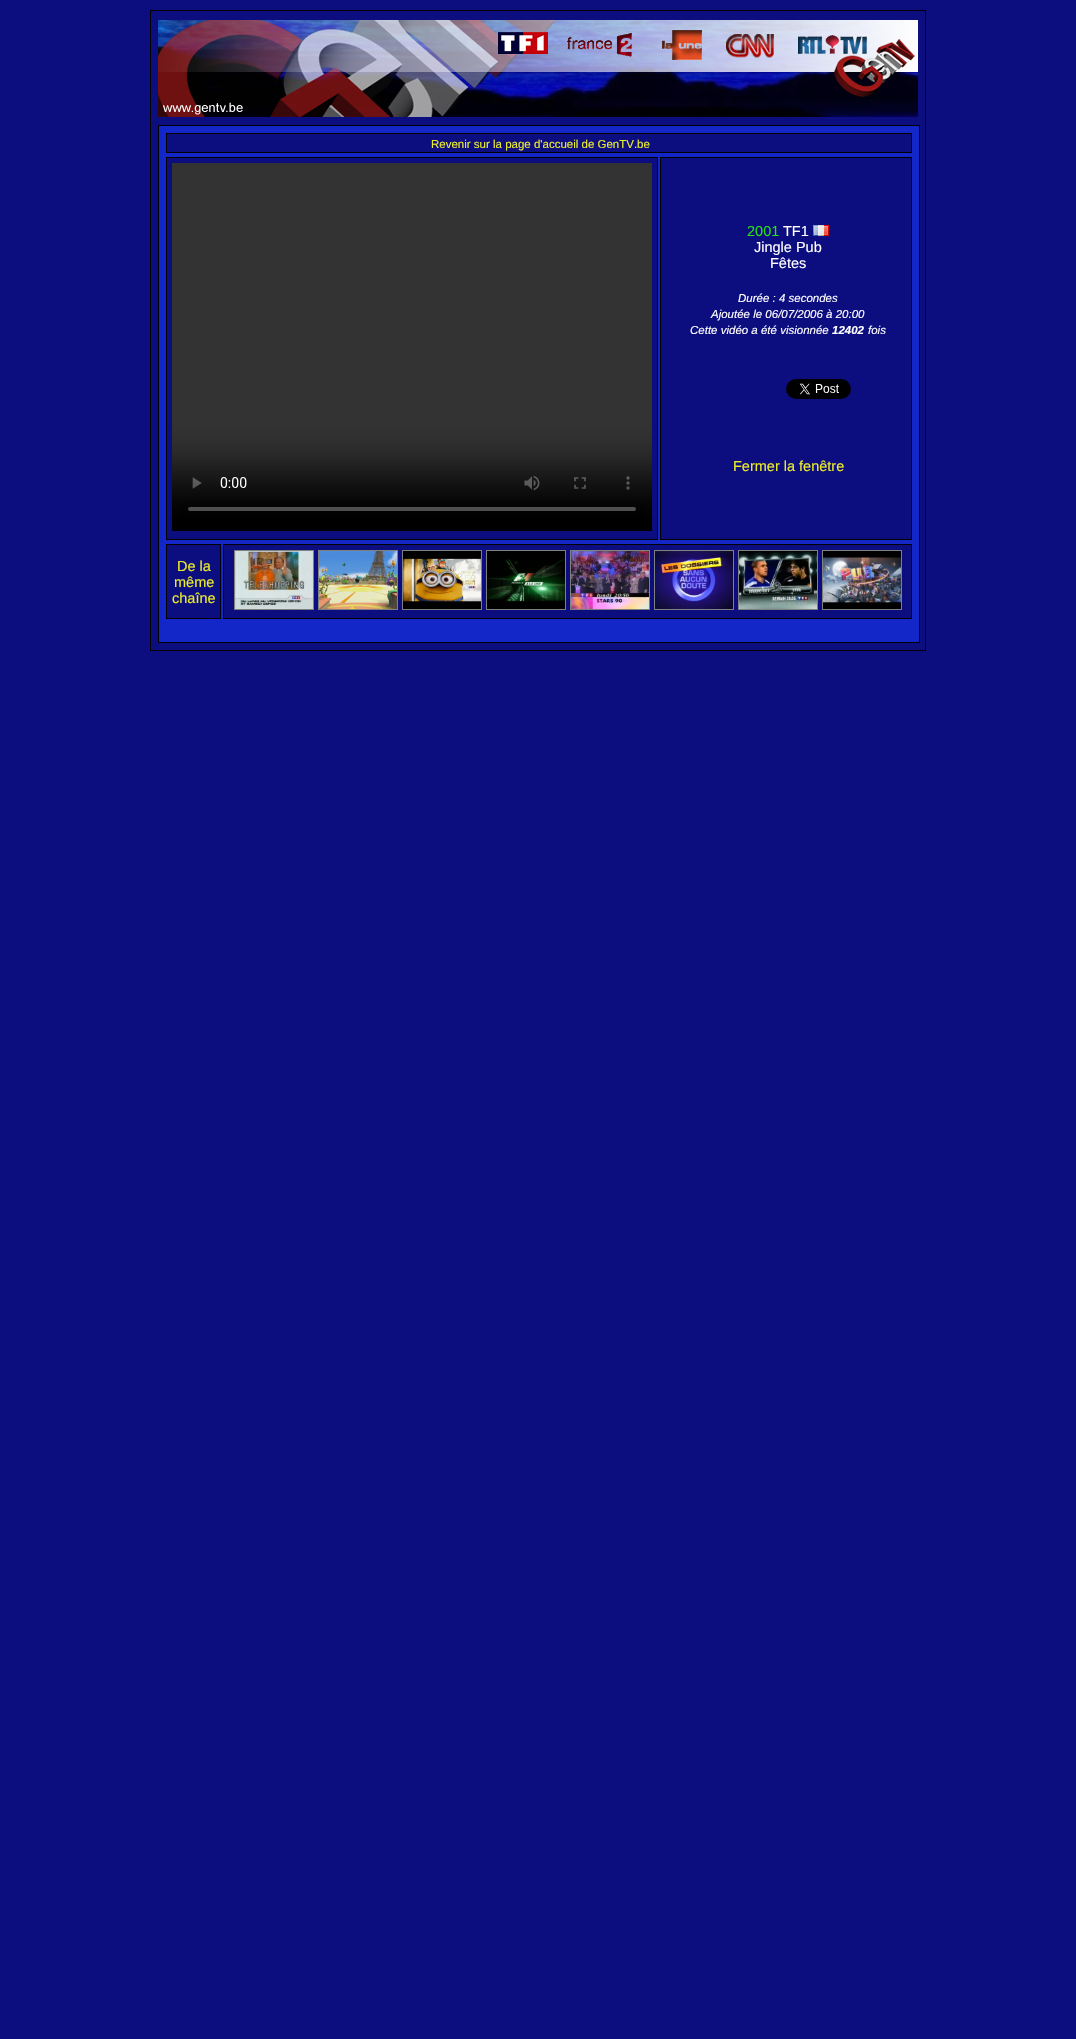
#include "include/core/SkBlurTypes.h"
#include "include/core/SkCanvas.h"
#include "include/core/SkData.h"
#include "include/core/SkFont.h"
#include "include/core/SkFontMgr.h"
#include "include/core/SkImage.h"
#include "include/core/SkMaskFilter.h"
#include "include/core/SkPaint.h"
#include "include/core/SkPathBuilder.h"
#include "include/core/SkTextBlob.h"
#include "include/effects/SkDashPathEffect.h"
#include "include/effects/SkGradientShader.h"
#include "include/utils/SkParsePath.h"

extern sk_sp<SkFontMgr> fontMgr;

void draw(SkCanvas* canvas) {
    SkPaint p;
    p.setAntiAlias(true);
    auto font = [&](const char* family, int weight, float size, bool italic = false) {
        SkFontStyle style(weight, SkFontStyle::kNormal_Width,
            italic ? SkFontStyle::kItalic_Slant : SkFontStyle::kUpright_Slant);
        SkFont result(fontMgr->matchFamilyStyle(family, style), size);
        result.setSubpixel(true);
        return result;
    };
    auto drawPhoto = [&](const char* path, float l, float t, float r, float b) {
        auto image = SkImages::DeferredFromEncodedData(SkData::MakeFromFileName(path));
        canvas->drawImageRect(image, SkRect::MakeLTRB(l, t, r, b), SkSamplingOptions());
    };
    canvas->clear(0xFF0C0D7F);
    p.setStyle(SkPaint::kStroke_Style);
    p.setStrokeWidth(1);
    p.setColor(0xFF000000);
    canvas->drawRect(SkRect::MakeLTRB(150.5f, 10.5f, 925.5f, 650.5f), p);
    drawPhoto("media/1.png", 158, 20, 918, 117);
    p.setStyle(SkPaint::kFill_Style);
    p.setColor(0xFF1327C9);
    canvas->drawRect(SkRect::MakeLTRB(158.5f, 125.5f, 919.5f, 642.5f), p);
    p.setStyle(SkPaint::kStroke_Style);
    p.setColor(0xFF000000);
    canvas->drawRect(SkRect::MakeLTRB(158.5f, 125.5f, 919.5f, 642.5f), p);
    p.setStyle(SkPaint::kFill_Style);
    p.setColor(0xFF0C0D7F);
    canvas->drawRect(SkRect::MakeLTRB(166.5f, 133.5f, 911.5f, 152.5f), p);
    p.setStyle(SkPaint::kStroke_Style);
    p.setColor(0xFF000000);
    canvas->drawRect(SkRect::MakeLTRB(166.5f, 133.5f, 911.5f, 152.5f), p);
    auto font1 = font("Liberation Sans", 400, 11.5f);
    p.setStyle(SkPaint::kFill_Style);
    p.setColor(0xFFEAEB2A);
    canvas->drawString("Revenir sur la page d'accueil de GenTV.be", 431, 148, font1, p);
    p.setColor(0xFF0C0D7F);
    canvas->drawRect(SkRect::MakeLTRB(166.5f, 157.5f, 657.5f, 539.5f), p);
    p.setStyle(SkPaint::kStroke_Style);
    p.setColor(0xFF000000);
    canvas->drawRect(SkRect::MakeLTRB(166.5f, 157.5f, 657.5f, 539.5f), p);
    drawPhoto("media/2.png", 172, 163, 652, 531);
    p.setStyle(SkPaint::kFill_Style);
    p.setColor(0xFF0C0D7F);
    canvas->drawRect(SkRect::MakeLTRB(660.5f, 157.5f, 911.5f, 539.5f), p);
    p.setStyle(SkPaint::kStroke_Style);
    p.setColor(0xFF000000);
    canvas->drawRect(SkRect::MakeLTRB(660.5f, 157.5f, 911.5f, 539.5f), p);
    auto font2 = font("Liberation Sans", 400, 14.5f);
    p.setStyle(SkPaint::kFill_Style);
    p.setColor(0xFF26E115);
    canvas->drawString("2001", 747, 236, font2, p);
    p.setColor(0xFFFFFFFF);
    canvas->drawString("TF1", 783, 236, font2, p);
    drawPhoto("media/3.png", 813, 225, 829, 236);
    canvas->drawString("Jingle Pub", 754, 252, font2, p);
    canvas->drawString("Fêtes", 770, 268, font2, p);
    auto font3 = font("Liberation Sans", 400, 11.5f, true);
    {
        const struct { const char* s; float x, y; } items[] = {
            {"Durée : 4 secondes", 738, 302},
            {"Ajoutée le 06/07/2006 à 20:00", 711, 318},
            {"Cette vidéo a été visionnée", 690, 334},
        };
        for (auto [s, x, y] : items) {
            canvas->drawString(s, x, y, font3, p);
        }
    }
    auto font4 = font("Liberation Sans", 700, 11.5f, true);
    canvas->drawString("12402", 832, 334, font4, p);
    canvas->drawString("fois", 868, 334, font3, p);
    drawPhoto("media/4.png", 786, 379, 851, 399);
    p.setColor(0xFFEAEB2A);
    canvas->drawString("Fermer la fenêtre", 733, 471, font2, p);
    p.setColor(0xFF0C0D7F);
    canvas->drawRect(SkRect::MakeLTRB(166.5f, 544.5f, 220.5f, 618.5f), p);
    p.setStyle(SkPaint::kStroke_Style);
    p.setColor(0xFF000000);
    canvas->drawRect(SkRect::MakeLTRB(166.5f, 544.5f, 220.5f, 618.5f), p);
    p.setStyle(SkPaint::kFill_Style);
    p.setColor(0xFFEAEB2A);
    {
        const struct { const char* s; float x, y; } items[] = {
            {"De la", 177, 571},
            {"même", 174, 587},
            {"chaîne", 172, 603},
        };
        for (auto [s, x, y] : items) {
            canvas->drawString(s, x, y, font2, p);
        }
    }
    p.setColor(0xFF0C0D7F);
    canvas->drawRect(SkRect::MakeLTRB(223.5f, 544.5f, 911.5f, 618.5f), p);
    p.setStyle(SkPaint::kStroke_Style);
    p.setColor(0xFF000000);
    canvas->drawRect(SkRect::MakeLTRB(223.5f, 544.5f, 911.5f, 618.5f), p);
    p.setColor(0xFF808080);
    canvas->drawRect(SkRect::MakeLTRB(234.5f, 550.5f, 313.5f, 609.5f), p);
    canvas->drawRect(SkRect::MakeLTRB(318.5f, 550.5f, 397.5f, 609.5f), p);
    canvas->drawRect(SkRect::MakeLTRB(402.5f, 550.5f, 481.5f, 609.5f), p);
    canvas->drawRect(SkRect::MakeLTRB(486.5f, 550.5f, 565.5f, 609.5f), p);
    canvas->drawRect(SkRect::MakeLTRB(570.5f, 550.5f, 649.5f, 609.5f), p);
    canvas->drawRect(SkRect::MakeLTRB(654.5f, 550.5f, 733.5f, 609.5f), p);
    canvas->drawRect(SkRect::MakeLTRB(738.5f, 550.5f, 817.5f, 609.5f), p);
    canvas->drawRect(SkRect::MakeLTRB(822.5f, 550.5f, 901.5f, 609.5f), p);
    drawPhoto("media/5.png", 235, 551, 313, 609);
    drawPhoto("media/6.png", 319, 551, 397, 609);
    drawPhoto("media/7.png", 403, 551, 481, 609);
    drawPhoto("media/8.png", 487, 551, 565, 609);
    drawPhoto("media/9.png", 571, 551, 649, 609);
    drawPhoto("media/10.png", 655, 551, 733, 609);
    drawPhoto("media/11.png", 739, 551, 817, 609);
    drawPhoto("media/12.png", 823, 551, 901, 609);
}
